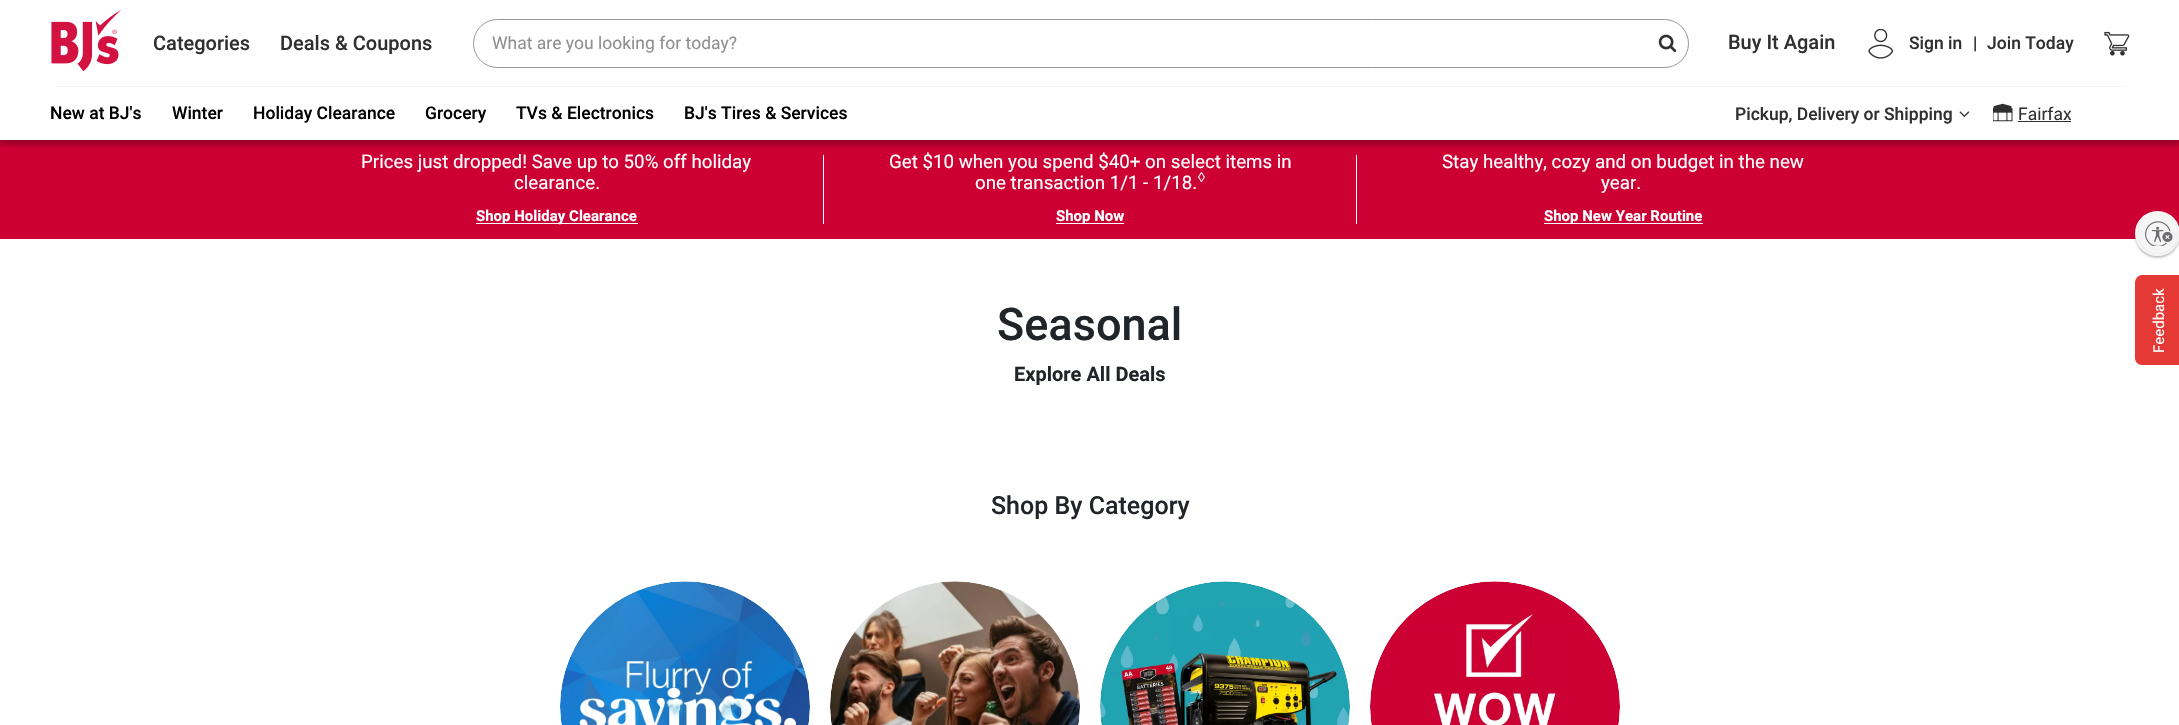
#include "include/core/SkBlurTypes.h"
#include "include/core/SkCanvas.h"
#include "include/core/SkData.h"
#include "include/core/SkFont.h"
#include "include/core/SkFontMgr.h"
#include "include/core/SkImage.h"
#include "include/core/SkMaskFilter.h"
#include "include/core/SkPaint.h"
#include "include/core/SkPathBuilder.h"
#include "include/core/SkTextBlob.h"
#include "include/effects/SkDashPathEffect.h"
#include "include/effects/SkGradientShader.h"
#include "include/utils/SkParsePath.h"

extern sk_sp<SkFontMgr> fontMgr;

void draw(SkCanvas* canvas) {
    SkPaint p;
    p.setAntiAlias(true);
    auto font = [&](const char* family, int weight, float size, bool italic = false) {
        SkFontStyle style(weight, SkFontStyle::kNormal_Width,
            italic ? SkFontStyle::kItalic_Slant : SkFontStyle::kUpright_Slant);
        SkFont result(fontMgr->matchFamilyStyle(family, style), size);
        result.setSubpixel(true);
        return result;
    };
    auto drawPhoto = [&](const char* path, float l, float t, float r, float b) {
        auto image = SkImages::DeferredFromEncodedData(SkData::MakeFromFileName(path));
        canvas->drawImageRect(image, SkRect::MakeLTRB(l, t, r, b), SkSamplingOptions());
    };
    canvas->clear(0xFFFFFFFF);
    p.setColor(0xFFCC0033);
    canvas->drawRect(SkRect::MakeLTRB(0, 140, 2179, 239), p);
    canvas->save();
    canvas->clipRect(SkRect::MakeLTRB(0, 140, 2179, 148));
    p.setColor(0x40000000);
    p.setMaskFilter(SkMaskFilter::MakeBlur(kNormal_SkBlurStyle, 2.5f));
    canvas->drawRect(SkRect::MakeLTRB(0, 5, 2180, 145), p);
    p.setMaskFilter(nullptr);
    canvas->restore();
    p.setColor(0xFFF5F5F5);
    canvas->drawRect(SkRect::MakeLTRB(55, 86, 2125, 87), p);
    drawPhoto("media/1.png", 51, 10, 121, 71);
    auto font1 = font("Roboto", 500, 20);
    p.setColor(0xFF303030);
    canvas->drawString("Categories", 153, 50, font1, p);
    canvas->drawString("Deals & Coupons", 280, 50, font1, p);
    p.setStyle(SkPaint::kStroke_Style);
    p.setStrokeWidth(1);
    p.setColor(0xFF979797);
    canvas->drawRoundRect(SkRect::MakeLTRB(473.5f, 19.5f, 1688.5f, 67.5f), 24, 24, p);
    auto font2 = font("Roboto", 400, 17.5f);
    p.setStyle(SkPaint::kFill_Style);
    p.setColor(0xFF8F8F8F);
    canvas->drawString("What are you looking for today?", 492, 49, font2, p);
    drawPhoto("media/2.png", 1658, 34, 1677, 52);
    p.setColor(0xFF303030);
    canvas->drawString("Buy It Again", 1728, 49, font1, p);
    drawPhoto("media/3.png", 1868, 29, 1894, 59);
    auto font3 = font("Roboto", 500, 17.5f);
    {
        const struct { const char* s; float x, y; } items[] = {
            {"Sign in", 1909, 49},
            {"|", 1973, 49},
            {"Join Today", 1987, 49},
        };
        for (auto [s, x, y] : items) {
            canvas->drawString(s, x, y, font3, p);
        }
    }
    drawPhoto("media/4.png", 2104, 31, 2130, 56);
    p.setColor(0xFF000000);
    {
        const struct { const char* s; float x, y; } items[] = {
            {"New at BJ's", 50, 119},
            {"Winter", 172, 119},
            {"Holiday Clearance", 253, 119},
            {"Grocery", 425, 119},
            {"TVs & Electronics", 516, 119},
            {"BJ's Tires & Services", 684, 119},
        };
        for (auto [s, x, y] : items) {
            canvas->drawString(s, x, y, font3, p);
        }
    }
    p.setColor(0xFF303030);
    canvas->drawString("Pickup, Delivery or Shipping", 1735, 120, font3, p);
    drawPhoto("media/5.png", 1959, 111, 1970, 117);
    drawPhoto("media/6.png", 1993, 103, 2013, 122);
    canvas->drawString("Fairfax", 2018, 120, font2, p);
    canvas->drawRect(SkRect::MakeLTRB(2018, 121, 2071, 122), p);
    auto font4 = font("Roboto", 400, 18.75f);
    p.setColor(0xFFFFFFFF);
    canvas->drawString("Prices just dropped! Save up to 50% off holiday", 361, 168, font4, p);
    canvas->drawString("clearance.", 514, 189, font4, p);
    canvas->drawRect(SkRect::MakeLTRB(476, 223, 638, 224), p);
    auto font5 = font("Roboto", 700, 15);
    canvas->drawString("Shop Holiday Clearance", 476, 221, font5, p);
    canvas->drawRect(SkRect::MakeLTRB(823, 155, 824, 224), p);
    canvas->drawString("Get $10 when you spend $40+ on select items in", 889, 168, font4, p);
    canvas->drawString("one transaction 1/1 - 1/18.", 975, 189, font4, p);
    auto font6 = font("Liberation Sans", 400, 14);
    canvas->drawString("◊", 1198, 182, font6, p);
    canvas->drawRect(SkRect::MakeLTRB(1056, 223, 1124, 224), p);
    canvas->drawString("Shop Now", 1056, 221, font5, p);
    canvas->drawRect(SkRect::MakeLTRB(1356, 155, 1357, 224), p);
    canvas->drawString("Stay healthy, cozy and on budget in the new", 1442, 168, font4, p);
    canvas->drawString("year.", 1601, 189, font4, p);
    canvas->drawRect(SkRect::MakeLTRB(1544, 223, 1703, 224), p);
    canvas->drawString("Shop New Year Routine", 1544, 221, font5, p);
    auto font7 = font("Roboto", 500, 45);
    p.setColor(0xFF212529);
    canvas->drawString("Seasonal", 997, 340, font7, p);
    auto font8 = font("Roboto", 700, 20);
    canvas->drawString("Explore All Deals", 1014, 381, font8, p);
    auto font9 = font("Roboto", 500, 25);
    canvas->drawString("Shop By Category", 991, 514, font9, p);
    drawPhoto("media/7.png", 560, 581, 810, 725);
    drawPhoto("media/8.png", 830, 581, 1080, 725);
    drawPhoto("media/9.png", 1100, 581, 1350, 725);
    drawPhoto("media/10.png", 1370, 581, 1620, 725);
    p.setColor(0xFFE53935);
    canvas->drawPath(SkPathBuilder().moveTo(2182, 365).lineTo(2142, 365).cubicTo(2138, 365, 2135, 362, 2135, 358).lineTo(2135, 283).cubicTo(2135, 279, 2138, 275, 2142, 275).lineTo(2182, 275).close().detach(), p);
    auto font10 = font("Roboto", 400, 15);
    p.setColor(0xFFFFFFFF);
    canvas->save();
    canvas->rotate(-90, 2164, 353);
    canvas->drawString("Feedback", 2164, 353, font10, p);
    canvas->restore();
    p.setColor(0x3D000000);
    p.setMaskFilter(SkMaskFilter::MakeBlur(kNormal_SkBlurStyle, 1));
    canvas->drawRoundRect(SkRect::MakeLTRB(2135, 213, 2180, 258), 22.5f, 22.5f, p);
    p.setMaskFilter(nullptr);
    p.setColor(0xFFEBEBF0);
    canvas->drawCircle(2157.5f, 233.5f, 21, p);
    p.setStyle(SkPaint::kStroke_Style);
    p.setStrokeWidth(3);
    p.setColor(0xFFF5F5F5);
    canvas->drawCircle(2157.5f, 233.5f, 21, p);
    canvas->save();
    canvas->clipPath(SkPathBuilder().moveTo(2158, 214).cubicTo(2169, 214, 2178, 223, 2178, 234).cubicTo(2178, 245, 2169, 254, 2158, 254).cubicTo(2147, 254, 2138, 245, 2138, 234).cubicTo(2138, 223, 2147, 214, 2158, 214).close().detach(), true);
    p.setStyle(SkPaint::kFill_Style);
    p.setColor(0x3D000000);
    p.setMaskFilter(SkMaskFilter::MakeBlur(kNormal_SkBlurStyle, 1));
    canvas->drawRoundRect(SkRect::MakeLTRB(2138, 215, 2178, 255), 20, 20, p);
    p.setMaskFilter(nullptr);
    canvas->restore();
    p.setColor(0xFFF5F5F5);
    canvas->drawCircle(2158, 234, 20, p);
    drawPhoto("media/11.png", 2145, 221, 2173, 246);
}
